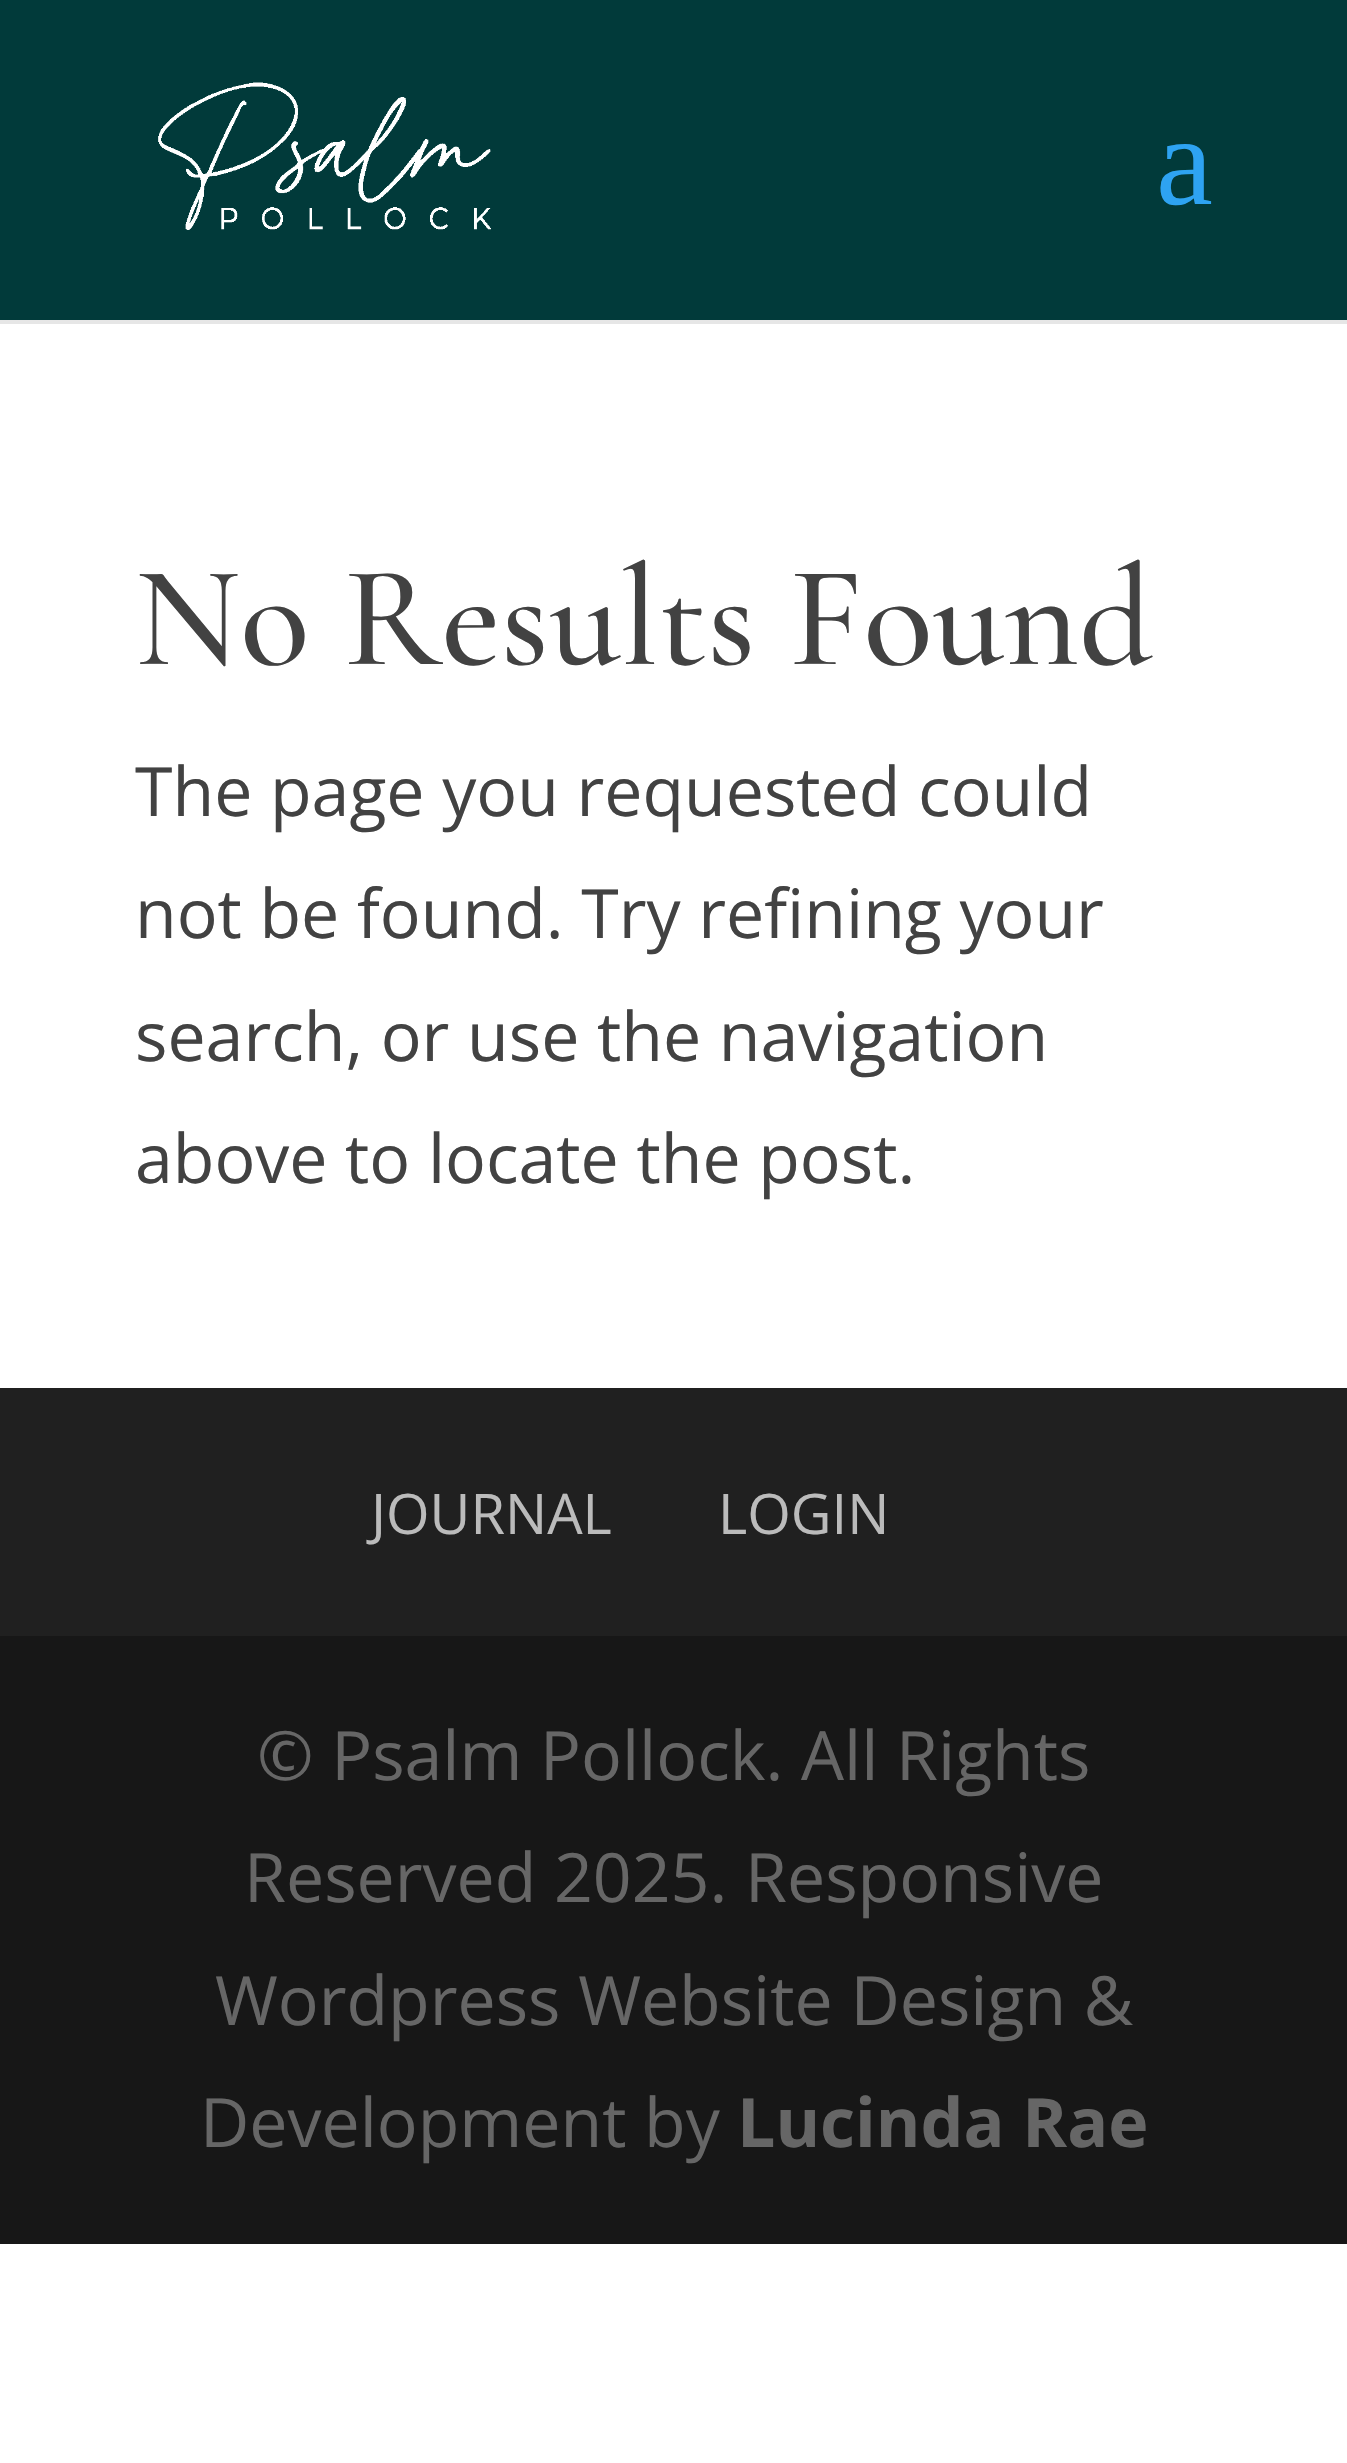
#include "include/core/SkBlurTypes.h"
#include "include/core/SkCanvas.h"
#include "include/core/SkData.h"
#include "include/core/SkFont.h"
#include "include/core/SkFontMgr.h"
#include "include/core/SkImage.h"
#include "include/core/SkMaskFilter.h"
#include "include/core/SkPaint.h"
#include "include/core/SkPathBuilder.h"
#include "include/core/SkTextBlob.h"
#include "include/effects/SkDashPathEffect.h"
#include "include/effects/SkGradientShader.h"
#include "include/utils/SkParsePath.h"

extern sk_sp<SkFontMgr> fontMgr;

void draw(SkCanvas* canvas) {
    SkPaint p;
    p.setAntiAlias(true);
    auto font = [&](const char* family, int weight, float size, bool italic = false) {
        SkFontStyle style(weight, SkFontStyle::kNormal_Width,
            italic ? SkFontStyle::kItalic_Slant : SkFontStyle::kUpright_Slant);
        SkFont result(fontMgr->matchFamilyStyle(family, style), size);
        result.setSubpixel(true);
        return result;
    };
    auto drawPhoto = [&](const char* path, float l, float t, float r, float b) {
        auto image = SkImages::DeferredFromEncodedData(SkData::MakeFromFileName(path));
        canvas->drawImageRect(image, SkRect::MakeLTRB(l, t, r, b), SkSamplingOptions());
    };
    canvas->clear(0xFFFFFFFF);
    p.setColor(0xFFE6E6E6);
    canvas->drawRect(SkRect::MakeLTRB(0, 320, 1347, 324), p);
    p.setColor(0xFF013A3A);
    canvas->drawRect(SkRect::MakeLTRB(0, 0, 1347, 320), p);
    drawPhoto("media/1.png", 158, 82, 491, 230);
    auto font1 = font("Liberation Serif", 400, 128);
    p.setColor(0xFF2EA3F2);
    canvas->drawString("a", 1156, 204, font1, p);
    auto font2 = font("Cormorant Garamond", 500, 144);
    p.setColor(0xFF424242);
    canvas->drawString("No Results Found", 135, 664, font2, p);
    auto font3 = font("Open Sans", 400, 68);
    {
        const struct { const char* s; float x, y; } items[] = {
            {"The page you requested could", 135, 816},
            {"not be found. Try refining your", 135, 938},
            {"search, or use the navigation", 135, 1061},
            {"above to locate the post.", 135, 1183},
        };
        for (auto [s, x, y] : items) {
            canvas->drawString(s, x, y, font3, p);
        }
    }
    p.setColor(0xFF202020);
    canvas->drawRect(SkRect::MakeLTRB(0, 1388, 1347, 1636), p);
    auto font4 = font("Open Sans", 400, 56);
    p.setColor(0xFFBBBBBB);
    canvas->drawString("JOURNAL", 371, 1534, font4, p);
    canvas->drawString("LOGIN", 718, 1534, font4, p);
    p.setColor(0xFF171717);
    canvas->drawRect(SkRect::MakeLTRB(0, 1636, 1347, 2244), p);
    p.setColor(0xFF666666);
    {
        const struct { const char* s; float x, y; } items[] = {
            {"© Psalm Pollock. All Rights", 257, 1780},
            {"Reserved 2025. Responsive", 244, 1902},
            {"Wordpress Website Design &", 215, 2025},
            {"Development by", 200, 2147},
        };
        for (auto [s, x, y] : items) {
            canvas->drawString(s, x, y, font3, p);
        }
    }
    auto font5 = font("Open Sans", 700, 68);
    canvas->drawString("Lucinda Rae", 737, 2147, font5, p);
}
